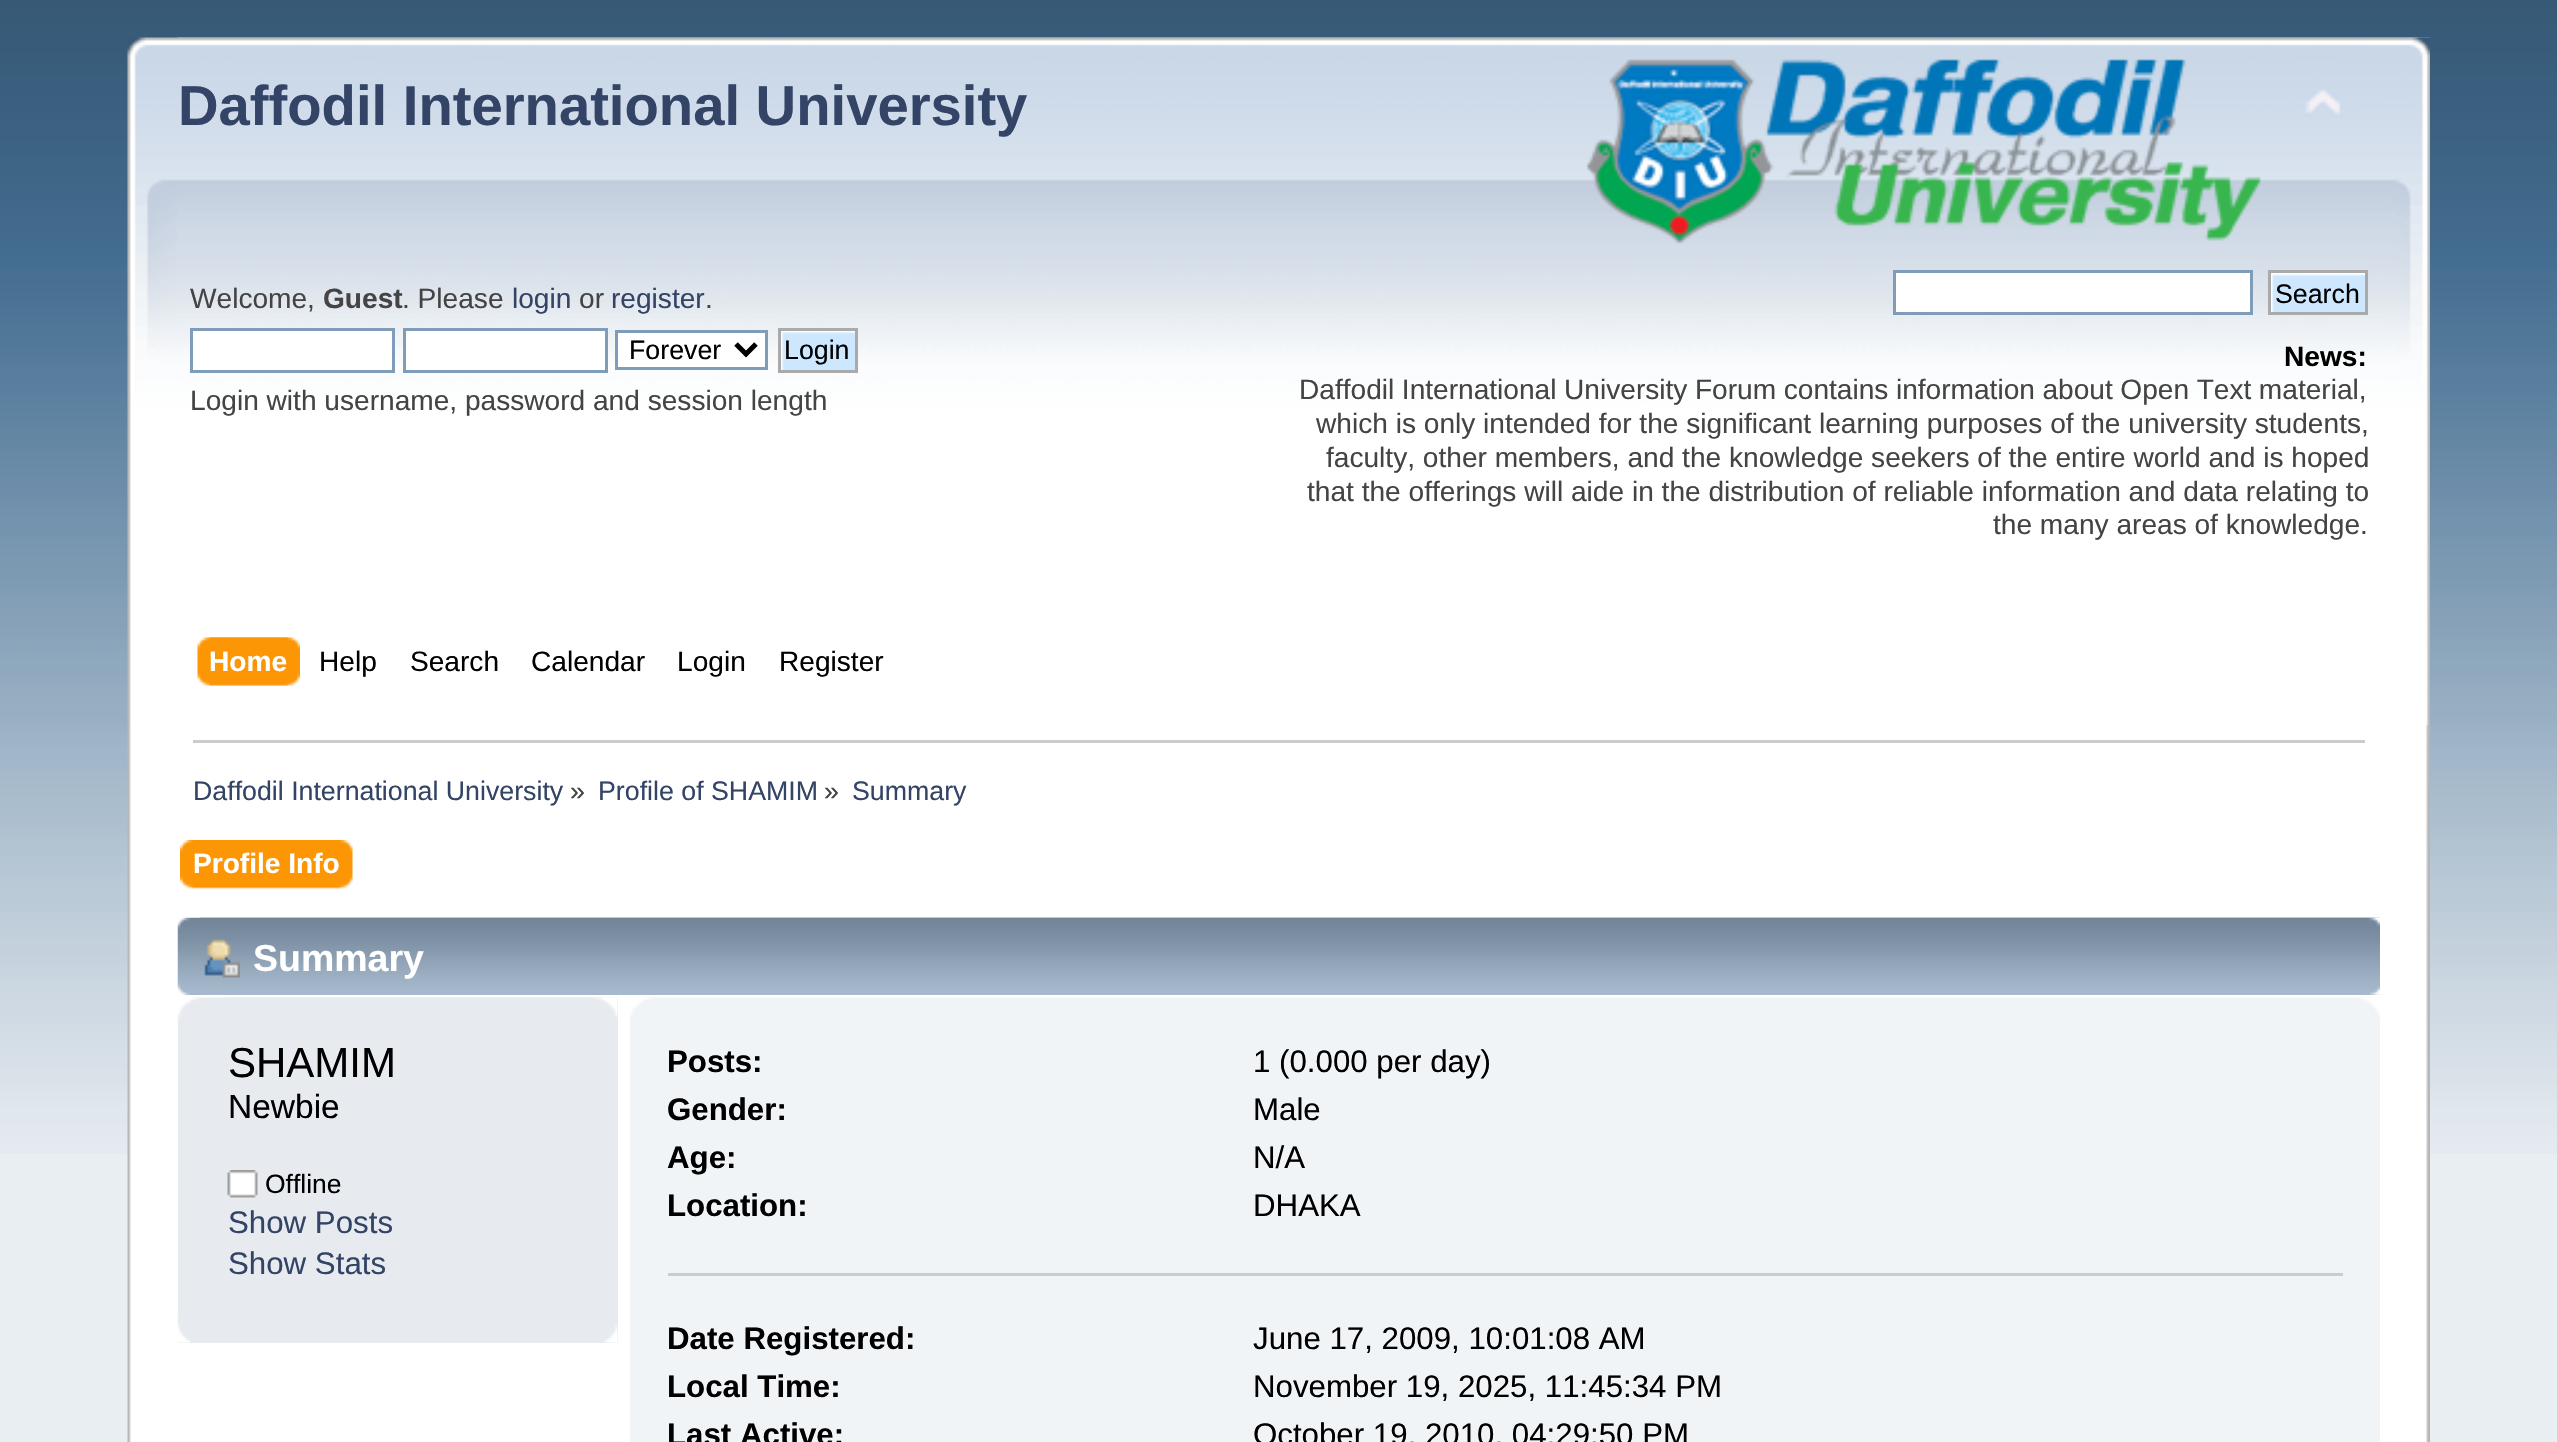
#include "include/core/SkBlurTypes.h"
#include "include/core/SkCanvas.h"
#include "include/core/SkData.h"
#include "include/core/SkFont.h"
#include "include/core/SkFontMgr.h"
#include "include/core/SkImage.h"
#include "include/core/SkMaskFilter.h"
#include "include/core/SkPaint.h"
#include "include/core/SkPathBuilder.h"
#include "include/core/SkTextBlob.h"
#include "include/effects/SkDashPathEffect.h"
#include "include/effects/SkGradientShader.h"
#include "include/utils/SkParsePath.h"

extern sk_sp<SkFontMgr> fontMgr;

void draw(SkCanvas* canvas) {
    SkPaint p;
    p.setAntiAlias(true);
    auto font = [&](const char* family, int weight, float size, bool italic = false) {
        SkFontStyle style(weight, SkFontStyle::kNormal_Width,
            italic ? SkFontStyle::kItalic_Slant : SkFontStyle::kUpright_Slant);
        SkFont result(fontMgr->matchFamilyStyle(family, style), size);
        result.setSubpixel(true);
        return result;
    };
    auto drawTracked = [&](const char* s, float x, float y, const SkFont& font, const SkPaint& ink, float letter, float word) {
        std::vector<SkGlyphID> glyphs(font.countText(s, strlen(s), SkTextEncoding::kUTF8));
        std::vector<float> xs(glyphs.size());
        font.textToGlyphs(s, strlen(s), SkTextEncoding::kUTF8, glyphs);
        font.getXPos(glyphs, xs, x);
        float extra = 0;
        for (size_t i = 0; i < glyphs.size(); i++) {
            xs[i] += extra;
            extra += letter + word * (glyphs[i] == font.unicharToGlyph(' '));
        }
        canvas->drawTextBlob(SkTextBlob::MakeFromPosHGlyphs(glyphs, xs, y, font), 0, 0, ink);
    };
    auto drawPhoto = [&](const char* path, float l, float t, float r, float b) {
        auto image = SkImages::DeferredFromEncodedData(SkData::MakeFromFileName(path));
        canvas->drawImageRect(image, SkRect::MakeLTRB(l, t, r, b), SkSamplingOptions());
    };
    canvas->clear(0xFFE9EEF2);
    drawPhoto("media/1.png", 0, 0, 2557, 1154);
    drawPhoto("media/2.png", 127, 37, 2430, 725);
    drawPhoto("media/3.png", 177, 37, 2430, 725);
    auto font1 = font("Liberation Sans", 700, 56.2f);
    p.setColor(0xFF334466);
    canvas->drawString("Daffodil International University", 178, 125, font1, p);
    drawPhoto("media/4.png", 1586, 59, 2261, 244);
    drawPhoto("media/5.png", 2305, 89, 2342, 117);
    auto font2 = font("Liberation Sans", 400, 28.1f);
    p.setColor(0xFF444444);
    canvas->drawString("Welcome,", 190, 308, font2, p);
    auto font3 = font("Liberation Sans", 700, 28.1f);
    canvas->drawString("Guest", 323, 308, font3, p);
    canvas->drawString(". Please", 402, 308, font2, p);
    p.setColor(0xFF334466);
    canvas->drawString("login", 512, 308, font2, p);
    p.setColor(0xFF444444);
    canvas->drawString("or", 579, 308, font2, p);
    p.setColor(0xFF334466);
    canvas->drawString("register", 611, 308, font2, p);
    p.setColor(0xFF444444);
    canvas->drawString(".", 705, 308, font2, p);
    p.setColor(0xFFFFFFFF);
    canvas->drawRect(SkRect::MakeLTRB(191.5f, 329.5f, 393.5f, 371.5f), p);
    p.setStyle(SkPaint::kStroke_Style);
    p.setStrokeWidth(3);
    p.setColor(0xFF7F9DB9);
    canvas->drawRect(SkRect::MakeLTRB(191.5f, 329.5f, 393.5f, 371.5f), p);
    p.setStyle(SkPaint::kFill_Style);
    p.setColor(0xFFFFFFFF);
    canvas->drawRect(SkRect::MakeLTRB(404.5f, 329.5f, 606.5f, 371.5f), p);
    p.setStyle(SkPaint::kStroke_Style);
    p.setColor(0xFF7F9DB9);
    canvas->drawRect(SkRect::MakeLTRB(404.5f, 329.5f, 606.5f, 371.5f), p);
    p.setStyle(SkPaint::kFill_Style);
    p.setColor(0xFFFFFFFF);
    canvas->drawRect(SkRect::MakeLTRB(616.5f, 331.5f, 766.5f, 368.5f), p);
    p.setStyle(SkPaint::kStroke_Style);
    p.setColor(0xFF7F9DB9);
    canvas->drawRect(SkRect::MakeLTRB(616.5f, 331.5f, 766.5f, 368.5f), p);
    p.setStrokeWidth(5);
    p.setColor(0xFF000000);
    canvas->drawPath(SkPathBuilder().moveTo(736, 344).lineTo(746, 354).lineTo(756, 344).detach(), p);
    auto font4 = font("Liberation Sans", 400, 26.75f);
    p.setStyle(SkPaint::kFill_Style);
    canvas->drawString("Forever", 629, 359, font4, p);
    drawPhoto("media/6.png", 781, 331, 855, 370);
    p.setStyle(SkPaint::kStroke_Style);
    p.setStrokeWidth(3);
    p.setColor(0xFFAAAAAA);
    canvas->drawRect(SkRect::MakeLTRB(779.5f, 329.5f, 856.5f, 371.5f), p);
    p.setStyle(SkPaint::kFill_Style);
    p.setColor(0xFF000000);
    canvas->drawString("Login", 784, 359, font4, p);
    p.setColor(0xFF444444);
    canvas->drawString("Login with username, password and session length", 190, 410, font2, p);
    p.setColor(0xFFFFFFFF);
    canvas->drawRect(SkRect::MakeLTRB(1894.5f, 271.5f, 2251.5f, 313.5f), p);
    p.setStyle(SkPaint::kStroke_Style);
    p.setColor(0xFF7F9DB9);
    canvas->drawRect(SkRect::MakeLTRB(1894.5f, 271.5f, 2251.5f, 313.5f), p);
    drawPhoto("media/7.png", 2271, 273, 2365, 312);
    p.setColor(0xFFAAAAAA);
    canvas->drawRect(SkRect::MakeLTRB(2269.5f, 271.5f, 2366.5f, 313.5f), p);
    p.setStyle(SkPaint::kFill_Style);
    p.setColor(0xFF000000);
    canvas->drawString("Search", 2275, 303, font4, p);
    canvas->drawString("News:", 2284, 366, font3, p);
    p.setColor(0xFF444444);
    drawTracked("Daffodil International University Forum contains information about Open Text material,", 1299, 399, font2, p, 0, -0.25f);
    {
        const struct { const char* s; float x, y; } items[] = {
            {"which is only intended for the significant learning purposes of the university students,", 1316, 433},
            {"faculty, other members, and the knowledge seekers of the entire world and is hoped", 1326, 467},
            {"that the offerings will aide in the distribution of reliable information and data relating to", 1307, 501},
            {"the many areas of knowledge.", 1993, 534},
        };
        for (auto [s, x, y] : items) {
            canvas->drawString(s, x, y, font2, p);
        }
    }
    drawPhoto("media/8.png", 210, 637, 300, 686);
    drawPhoto("media/9.png", 197, 637, 288, 686);
    p.setColor(0xFFFFFFFF);
    canvas->drawString("Home", 209, 671, font3, p);
    p.setColor(0xFF000000);
    {
        const struct { const char* s; float x, y; } items[] = {
            {"Help", 319, 671},
            {"Search", 410, 671},
            {"Calendar", 531, 671},
            {"Login", 677, 671},
            {"Register", 779, 671},
        };
        for (auto [s, x, y] : items) {
            canvas->drawString(s, x, y, font2, p);
        }
    }
    p.setColor(0xFFFFFFFF);
    canvas->drawRect(SkRect::MakeLTRB(131, 725, 2426, 1442), p);
    drawPhoto("media/10.png", 127, 725, 131, 1442);
    drawPhoto("media/11.png", 2426, 725, 2430, 1442);
    p.setColor(0xFFCCCCCC);
    canvas->drawRect(SkRect::MakeLTRB(193, 740, 2365, 743), p);
    p.setColor(0xFF334466);
    canvas->drawString("Daffodil International University", 193, 800, font4, p);
    p.setColor(0xFF444444);
    canvas->drawString("»", 570, 800, font4, p);
    p.setColor(0xFF334466);
    canvas->drawString("Profile of SHAMIM", 598, 800, font4, p);
    p.setColor(0xFF444444);
    canvas->drawString("»", 824, 800, font4, p);
    p.setColor(0xFF334466);
    canvas->drawString("Summary", 852, 800, font4, p);
    drawPhoto("media/12.png", 192, 840, 353, 889);
    drawPhoto("media/13.png", 180, 840, 340, 889);
    p.setColor(0xFFFFFFFF);
    canvas->drawString("Profile Info", 193, 873, font3, p);
    drawPhoto("media/14.png", 177, 917, 2380, 995);
    drawPhoto("media/15.png", 200, 917, 2380, 995);
    drawPhoto("media/16.png", 204, 939, 240, 978);
    auto font5 = font("Liberation Sans", 700, 37.5f);
    canvas->drawString("Summary", 253, 971, font5, p);
    p.setColor(0xFFE7EAEF);
    canvas->drawRect(SkRect::MakeLTRB(178, 998, 618, 1343), p);
    drawPhoto("media/17.png", 177, 997, 618, 1025);
    drawPhoto("media/18.png", 228, 997, 618, 1018);
    auto font6 = font("Liberation Sans", 400, 42);
    p.setColor(0xFF000000);
    canvas->drawString("SHAMIM", 228, 1077, font6, p);
    auto font7 = font("Liberation Sans", 400, 33.5f);
    canvas->drawString("Newbie", 228, 1118, font7, p);
    drawPhoto("media/19.png", 227, 1170, 258, 1198);
    auto font8 = font("Liberation Sans", 400, 26.5f);
    canvas->drawString("Offline", 265, 1193, font8, p);
    auto font9 = font("Liberation Sans", 400, 31.25f);
    p.setColor(0xFF334466);
    canvas->drawString("Show Posts", 228, 1233, font9, p);
    canvas->drawString("Show Stats", 228, 1274, font9, p);
    drawPhoto("media/20.png", 177, 1315, 191, 1343);
    drawPhoto("media/21.png", 604, 1324, 618, 1343);
    p.setColor(0xFFF0F4F7);
    canvas->drawRect(SkRect::MakeLTRB(630, 1017, 2380, 1442), p);
    drawPhoto("media/22.png", 630, 997, 2380, 1017);
    drawPhoto("media/23.png", 2360, 997, 2380, 1017);
    p.setColor(0xFFCCCCCC);
    canvas->drawRect(SkRect::MakeLTRB(668, 1273, 2343, 1276), p);
    auto font10 = font("Liberation Sans", 700, 31.25f);
    p.setColor(0xFF000000);
    canvas->drawString("Posts:", 667, 1072, font10, p);
    canvas->drawString("1 (0.000 per day)", 1253, 1072, font9, p);
    canvas->drawString("Gender:", 667, 1120, font10, p);
    canvas->drawString("Male", 1253, 1120, font9, p);
    canvas->drawString("Age:", 667, 1168, font10, p);
    canvas->drawString("N/A", 1253, 1168, font9, p);
    canvas->drawString("Location:", 667, 1216, font10, p);
    canvas->drawString("DHAKA", 1253, 1216, font9, p);
    canvas->drawString("Date Registered:", 667, 1349, font10, p);
    canvas->drawString("June 17, 2009, 10:01:08 AM", 1253, 1349, font9, p);
    canvas->drawString("Local Time:", 667, 1397, font10, p);
    canvas->drawString("November 19, 2025, 11:45:34 PM", 1253, 1397, font9, p);
    canvas->drawString("Last Active:", 667, 1445, font10, p);
    canvas->drawString("October 19, 2010, 04:29:50 PM", 1253, 1445, font9, p);
}
